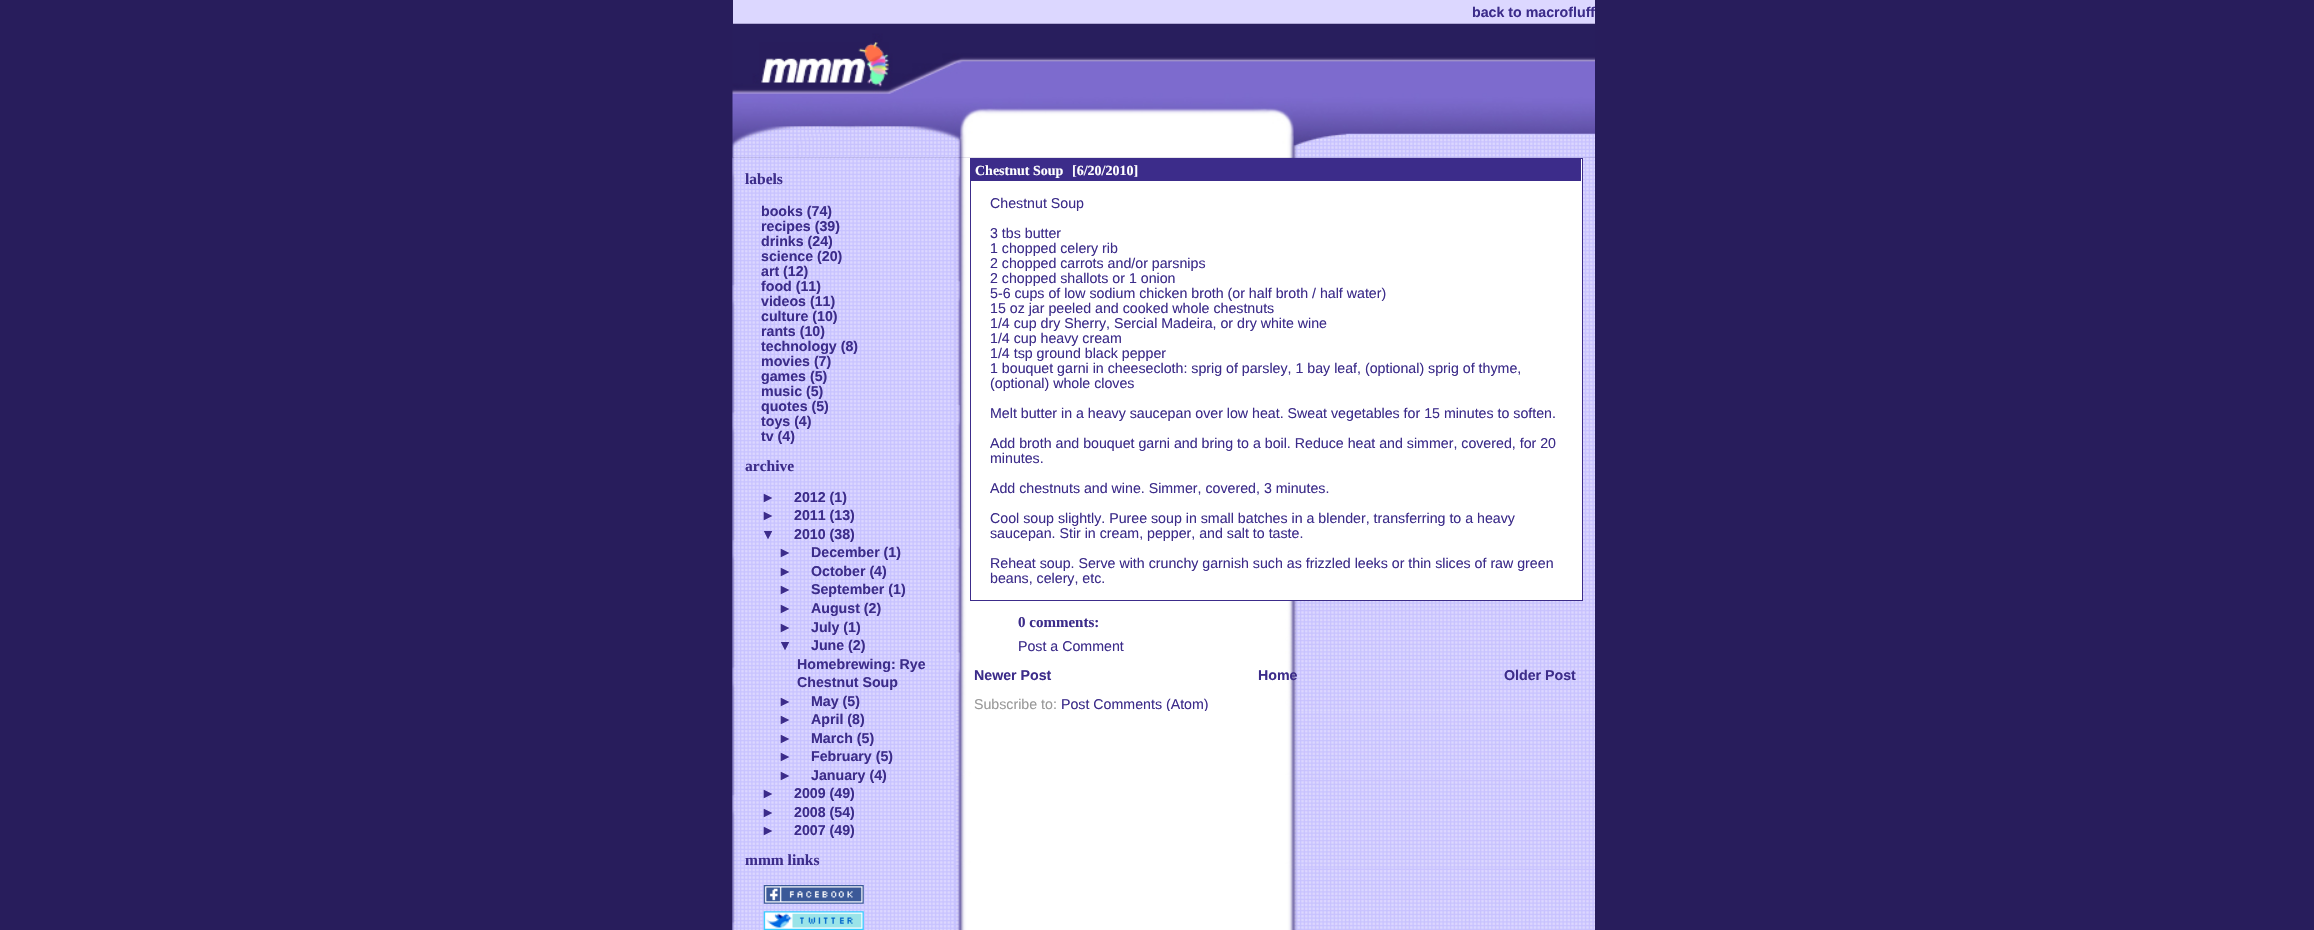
#include "include/core/SkBlurTypes.h"
#include "include/core/SkCanvas.h"
#include "include/core/SkData.h"
#include "include/core/SkFont.h"
#include "include/core/SkFontMgr.h"
#include "include/core/SkImage.h"
#include "include/core/SkMaskFilter.h"
#include "include/core/SkPaint.h"
#include "include/core/SkPathBuilder.h"
#include "include/core/SkTextBlob.h"
#include "include/effects/SkDashPathEffect.h"
#include "include/effects/SkGradientShader.h"
#include "include/utils/SkParsePath.h"

extern sk_sp<SkFontMgr> fontMgr;

void draw(SkCanvas* canvas) {
    SkPaint p;
    p.setAntiAlias(true);
    auto font = [&](const char* family, int weight, float size, bool italic = false) {
        SkFontStyle style(weight, SkFontStyle::kNormal_Width,
            italic ? SkFontStyle::kItalic_Slant : SkFontStyle::kUpright_Slant);
        SkFont result(fontMgr->matchFamilyStyle(family, style), size);
        result.setSubpixel(true);
        return result;
    };
    auto drawPhoto = [&](const char* path, float l, float t, float r, float b) {
        auto image = SkImages::DeferredFromEncodedData(SkData::MakeFromFileName(path));
        canvas->drawImageRect(image, SkRect::MakeLTRB(l, t, r, b), SkSamplingOptions());
    };
    canvas->clear(0xFF281D5C);
    p.setColor(0xFFDCD7FF);
    canvas->drawRect(SkRect::MakeLTRB(733, 0, 1595, 24), p);
    auto font1 = font("Liberation Sans", 700, 14.2f);
    p.setColor(0xFF3C2C8A);
    canvas->drawString("back to macrofluff", 1472, 17, font1, p);
    drawPhoto("media/1.png", 732, 23, 1595, 158);
    drawPhoto("media/2.png", 759, 42, 889, 87);
    drawPhoto("media/3.png", 732, 157, 1595, 930);
    drawPhoto("media/4.png", 732, 157, 955, 930);
    auto font2 = font("Liberation Serif", 700, 15.5f);
    canvas->drawString("labels", 745, 184, font2, p);
    {
        const struct { const char* s; float x, y; } items[] = {
            {"books (74)", 761, 216},
            {"recipes (39)", 761, 231},
            {"drinks (24)", 761, 246},
            {"science (20)", 761, 261},
            {"art (12)", 761, 276},
            {"food (11)", 761, 291},
            {"videos (11)", 761, 306},
            {"culture (10)", 761, 321},
            {"rants (10)", 761, 336},
            {"technology (8)", 761, 351},
            {"movies (7)", 761, 366},
            {"games (5)", 761, 381},
            {"music (5)", 761, 396},
            {"quotes (5)", 761, 411},
            {"toys (4)", 761, 426},
            {"tv (4)", 761, 441},
        };
        for (auto [s, x, y] : items) {
            canvas->drawString(s, x, y, font1, p);
        }
    }
    canvas->drawString("archive", 745, 471, font2, p);
    {
        const struct { const char* s; float x, y; } items[] = {
            {"►", 761, 502},
            {"2012 (1)", 794, 502},
            {"►", 761, 520},
            {"2011 (13)", 794, 520},
            {"▼", 761, 539},
            {"2010 (38)", 794, 539},
            {"►", 778, 557},
            {"December (1)", 811, 557},
            {"►", 778, 576},
            {"October (4)", 811, 576},
            {"►", 778, 594},
            {"September (1)", 811, 594},
            {"►", 778, 613},
            {"August (2)", 811, 613},
            {"►", 778, 632},
            {"July (1)", 811, 632},
            {"▼", 778, 650},
            {"June (2)", 811, 650},
            {"Homebrewing: Rye", 797, 669},
            {"Chestnut Soup", 797, 687},
            {"►", 778, 706},
            {"May (5)", 811, 706},
            {"►", 778, 724},
            {"April (8)", 811, 724},
            {"►", 778, 743},
            {"March (5)", 811, 743},
            {"►", 778, 761},
            {"February (5)", 811, 761},
            {"►", 778, 780},
            {"January (4)", 811, 780},
            {"►", 761, 798},
            {"2009 (49)", 794, 798},
            {"►", 761, 817},
            {"2008 (54)", 794, 817},
            {"►", 761, 835},
            {"2007 (49)", 794, 835},
        };
        for (auto [s, x, y] : items) {
            canvas->drawString(s, x, y, font1, p);
        }
    }
    canvas->drawString("mmm links", 745, 865, font2, p);
    drawPhoto("media/5.png", 763, 885, 864, 904);
    drawPhoto("media/6.png", 763, 911, 864, 930);
    drawPhoto("media/7.png", 955, 157, 1595, 711);
    p.setColor(0xFFFFFFFF);
    canvas->drawRect(SkRect::MakeLTRB(1285, 159, 1582, 600), p);
    p.setStyle(SkPaint::kStroke_Style);
    p.setStrokeWidth(1);
    p.setColor(0xFF3C2C8A);
    canvas->drawRect(SkRect::MakeLTRB(970.5f, 158.5f, 1582.5f, 600.5f), p);
    p.setStyle(SkPaint::kFill_Style);
    canvas->drawRect(SkRect::MakeLTRB(971, 159, 1581, 181), p);
    auto font3 = font("Liberation Serif", 700, 14);
    p.setColor(0xFFFFFFFF);
    canvas->drawString("Chestnut Soup", 975, 175, font3, p);
    canvas->drawString("[6/20/2010]", 1072, 175, font3, p);
    auto font4 = font("Liberation Sans", 400, 14.2f);
    p.setColor(0xFF3C2C8A);
    {
        const struct { const char* s; float x, y; } items[] = {
            {"Chestnut Soup", 990, 208},
            {"3 tbs butter", 990, 238},
            {"1 chopped celery rib", 990, 253},
            {"2 chopped carrots and/or parsnips", 990, 268},
            {"2 chopped shallots or 1 onion", 990, 283},
            {"5-6 cups of low sodium chicken broth (or half broth / half water)", 990, 298},
            {"15 oz jar peeled and cooked whole chestnuts", 990, 313},
            {"1/4 cup dry Sherry, Sercial Madeira, or dry white wine", 990, 328},
            {"1/4 cup heavy cream", 990, 343},
            {"1/4 tsp ground black pepper", 990, 358},
            {"1 bouquet garni in cheesecloth: sprig of parsley, 1 bay leaf, (optional) sprig of thyme,", 990, 373},
            {"(optional) whole cloves", 990, 388},
            {"Melt butter in a heavy saucepan over low heat. Sweat vegetables for 15 minutes to soften.", 990, 418},
            {"Add broth and bouquet garni and bring to a boil. Reduce heat and simmer, covered, for 20", 990, 448},
            {"minutes.", 990, 463},
            {"Add chestnuts and wine. Simmer, covered, 3 minutes.", 990, 493},
            {"Cool soup slightly. Puree soup in small batches in a blender, transferring to a heavy", 990, 523},
            {"saucepan. Stir in cream, pepper, and salt to taste.", 990, 538},
            {"Reheat soup. Serve with crunchy garnish such as frizzled leeks or thin slices of raw green", 990, 568},
            {"beans, celery, etc.", 990, 583},
        };
        for (auto [s, x, y] : items) {
            canvas->drawString(s, x, y, font4, p);
        }
    }
    auto font5 = font("Liberation Serif", 700, 15);
    canvas->drawString("0 comments:", 1018, 627, font5, p);
    canvas->drawString("Post a Comment", 1018, 651, font4, p);
    {
        const struct { const char* s; float x, y; } items[] = {
            {"Newer Post", 974, 680},
            {"Home", 1258, 680},
            {"Older Post", 1504, 680},
        };
        for (auto [s, x, y] : items) {
            canvas->drawString(s, x, y, font1, p);
        }
    }
    p.setColor(0xFF999999);
    canvas->drawString("Subscribe to:", 974, 709, font4, p);
    canvas->save();
    canvas->clipRect(SkRect::MakeLTRB(955, 158, 1595, 711));
    p.setColor(0xFF3C2C8A);
    canvas->drawString("Post Comments (Atom)", 1061, 709, font4, p);
    canvas->restore();
}
